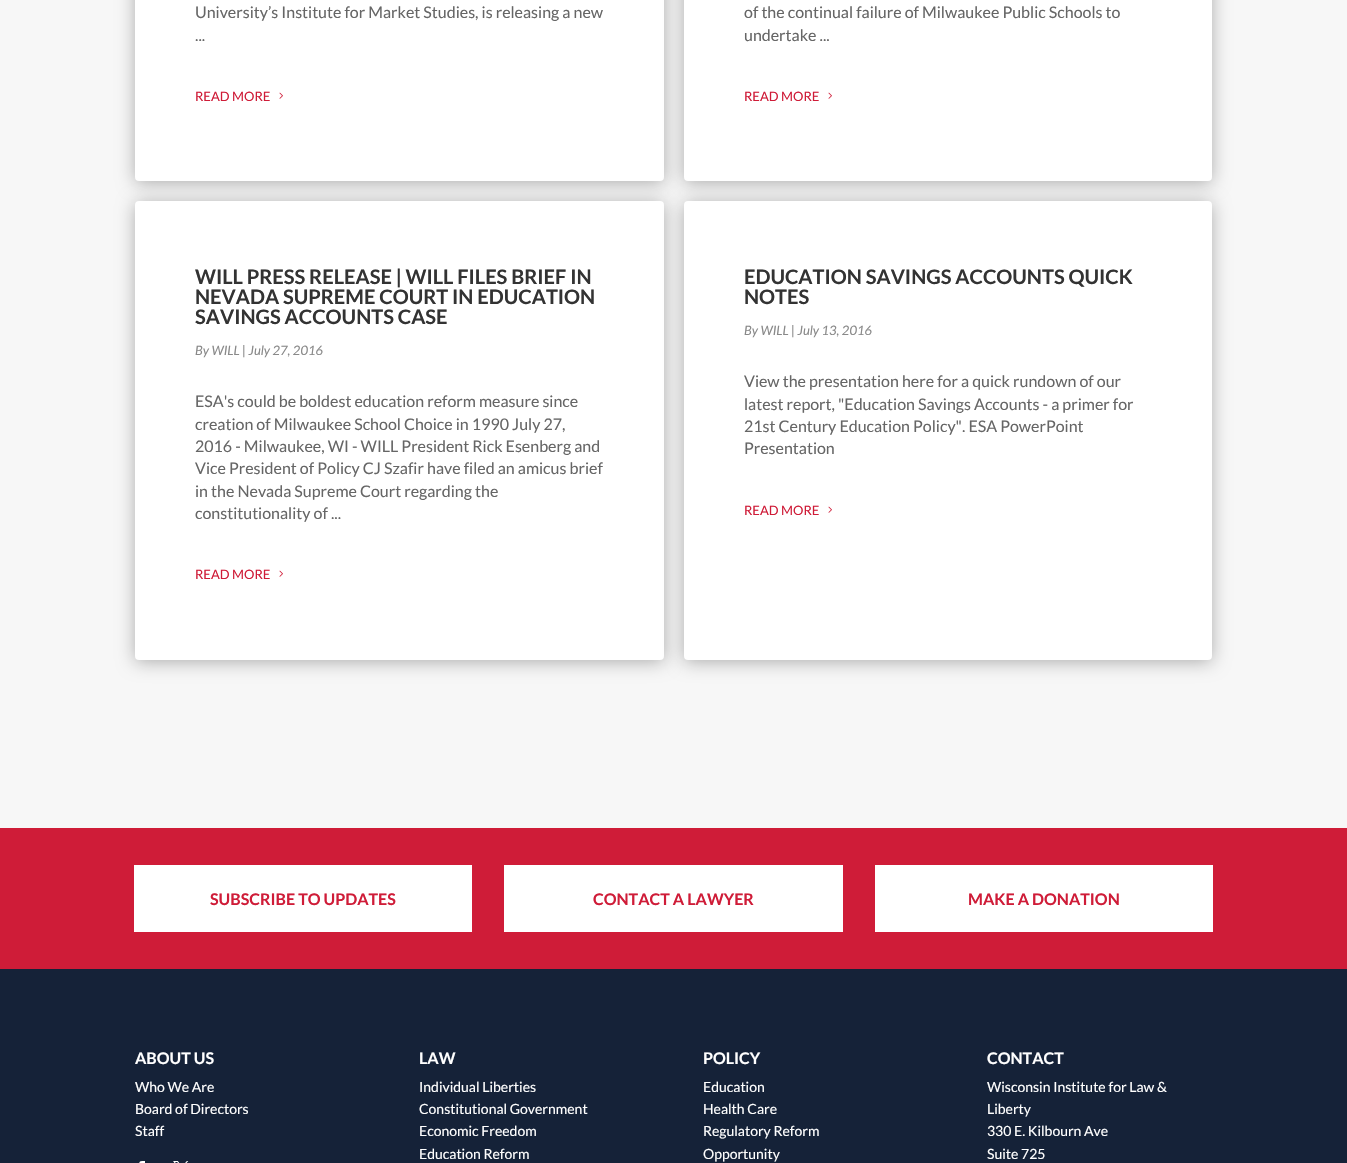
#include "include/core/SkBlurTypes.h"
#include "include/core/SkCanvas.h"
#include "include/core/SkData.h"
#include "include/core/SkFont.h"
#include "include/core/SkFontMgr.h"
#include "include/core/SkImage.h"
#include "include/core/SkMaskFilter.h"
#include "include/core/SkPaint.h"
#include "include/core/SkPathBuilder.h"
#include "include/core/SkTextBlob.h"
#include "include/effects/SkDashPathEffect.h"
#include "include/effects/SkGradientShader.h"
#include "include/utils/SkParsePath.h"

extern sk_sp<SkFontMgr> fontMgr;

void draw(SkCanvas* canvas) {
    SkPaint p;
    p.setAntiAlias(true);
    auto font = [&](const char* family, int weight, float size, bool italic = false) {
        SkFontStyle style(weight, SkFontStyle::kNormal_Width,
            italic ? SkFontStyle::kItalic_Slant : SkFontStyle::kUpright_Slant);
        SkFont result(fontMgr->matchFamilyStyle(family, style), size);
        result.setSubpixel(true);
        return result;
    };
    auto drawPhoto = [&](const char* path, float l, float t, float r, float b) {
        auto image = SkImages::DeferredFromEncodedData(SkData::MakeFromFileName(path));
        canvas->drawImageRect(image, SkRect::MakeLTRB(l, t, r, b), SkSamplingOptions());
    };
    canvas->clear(0xFFF7F7F7);
    p.setColor(0x4D000000);
    p.setMaskFilter(SkMaskFilter::MakeBlur(kNormal_SkBlurStyle, 9));
    canvas->drawRoundRect(SkRect::MakeLTRB(135, -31, 664, 183), 4, 4, p);
    p.setMaskFilter(nullptr);
    p.setColor(0xFFFFFFFF);
    canvas->drawRoundRect(SkRect::MakeLTRB(135, -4, 664, 181), 4, 4, p);
    auto font1 = font("Lato", 400, 16);
    p.setColor(0xFF666666);
    canvas->drawString("University’s Institute for Market Studies, is releasing a new", 195, 18, font1, p);
    canvas->drawString("...", 195, 41, font1, p);
    auto font2 = font("Lato", 400, 13);
    p.setColor(0xFFCF1C38);
    canvas->drawString("READ MORE", 195, 101, font2, p);
    drawPhoto("media/1.png", 279, 92, 283, 99);
    p.setColor(0x4D000000);
    p.setMaskFilter(SkMaskFilter::MakeBlur(kNormal_SkBlurStyle, 9));
    canvas->drawRoundRect(SkRect::MakeLTRB(684, -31, 1212, 183), 4, 4, p);
    p.setMaskFilter(nullptr);
    p.setColor(0xFFFFFFFF);
    canvas->drawRoundRect(SkRect::MakeLTRB(684, -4, 1212, 181), 4, 4, p);
    p.setColor(0xFF666666);
    canvas->drawString("of the continual failure of Milwaukee Public Schools to", 744, 18, font1, p);
    canvas->drawString("undertake ...", 744, 41, font1, p);
    p.setColor(0xFFCF1C38);
    canvas->drawString("READ MORE", 744, 101, font2, p);
    drawPhoto("media/1.png", 828, 92, 832, 99);
    p.setColor(0x4D000000);
    p.setMaskFilter(SkMaskFilter::MakeBlur(kNormal_SkBlurStyle, 9));
    canvas->drawRoundRect(SkRect::MakeLTRB(135, 203, 664, 662), 4, 4, p);
    p.setMaskFilter(nullptr);
    p.setColor(0xFFFFFFFF);
    canvas->drawRoundRect(SkRect::MakeLTRB(135, 201, 664, 660), 4, 4, p);
    auto font3 = font("Lato", 700, 20);
    p.setColor(0xFF333333);
    {
        const struct { const char* s; float x, y; } items[] = {
            {"WILL PRESS RELEASE | WILL FILES BRIEF IN", 195, 284},
            {"NEVADA SUPREME COURT IN EDUCATION", 195, 304},
            {"SAVINGS ACCOUNTS CASE", 195, 324},
        };
        for (auto [s, x, y] : items) {
            canvas->drawString(s, x, y, font3, p);
        }
    }
    auto font4 = font("Lato", 400, 13, true);
    p.setColor(0xFF898989);
    canvas->drawString("By WILL | July 27, 2016", 195, 355, font4, p);
    p.setColor(0xFF666666);
    {
        const struct { const char* s; float x, y; } items[] = {
            {"ESA's could be boldest education reform measure since", 195, 407},
            {"creation of Milwaukee School Choice in 1990 July 27,", 195, 430},
            {"2016 - Milwaukee, WI - WILL President Rick Esenberg and", 195, 452},
            {"Vice President of Policy CJ Szafir have filed an amicus brief", 195, 474},
            {"in the Nevada Supreme Court regarding the", 195, 497},
            {"constitutionality of ...", 195, 519},
        };
        for (auto [s, x, y] : items) {
            canvas->drawString(s, x, y, font1, p);
        }
    }
    p.setColor(0xFFCF1C38);
    canvas->drawString("READ MORE", 195, 579, font2, p);
    drawPhoto("media/1.png", 279, 570, 283, 577);
    p.setColor(0x4D000000);
    p.setMaskFilter(SkMaskFilter::MakeBlur(kNormal_SkBlurStyle, 9));
    canvas->drawRoundRect(SkRect::MakeLTRB(684, 203, 1212, 662), 4, 4, p);
    p.setMaskFilter(nullptr);
    p.setColor(0xFFFFFFFF);
    canvas->drawRoundRect(SkRect::MakeLTRB(684, 201, 1212, 660), 4, 4, p);
    p.setColor(0xFF333333);
    canvas->drawString("EDUCATION SAVINGS ACCOUNTS QUICK", 744, 284, font3, p);
    canvas->drawString("NOTES", 744, 304, font3, p);
    p.setColor(0xFF898989);
    canvas->drawString("By WILL | July 13, 2016", 744, 335, font4, p);
    p.setColor(0xFF666666);
    {
        const struct { const char* s; float x, y; } items[] = {
            {"View the presentation here for a quick rundown of our", 744, 387},
            {"latest report, \"Education Savings Accounts - a primer for", 744, 410},
            {"21st Century Education Policy\". ESA PowerPoint", 744, 432},
            {"Presentation", 744, 454},
        };
        for (auto [s, x, y] : items) {
            canvas->drawString(s, x, y, font1, p);
        }
    }
    p.setColor(0xFFCF1C38);
    canvas->drawString("READ MORE", 744, 515, font2, p);
    drawPhoto("media/1.png", 828, 506, 832, 513);
    canvas->drawRect(SkRect::MakeLTRB(0, 828, 1347, 969), p);
    p.setColor(0xFFFFFFFF);
    canvas->drawRect(SkRect::MakeLTRB(134, 865, 472, 932), p);
    auto font5 = font("Lato", 700, 16);
    p.setColor(0xFFCF1C38);
    canvas->drawString("SUBSCRIBE TO UPDATES", 210, 905, font5, p);
    p.setColor(0xFFFFFFFF);
    canvas->drawRect(SkRect::MakeLTRB(504, 865, 843, 932), p);
    p.setColor(0xFFCF1C38);
    canvas->drawString("CONTACT A LAWYER", 593, 905, font5, p);
    p.setColor(0xFFFFFFFF);
    canvas->drawRect(SkRect::MakeLTRB(875, 865, 1213, 932), p);
    p.setColor(0xFFCF1C38);
    canvas->drawString("MAKE A DONATION", 968, 905, font5, p);
    p.setColor(0xFF152238);
    canvas->drawRect(SkRect::MakeLTRB(0, 969, 1347, 1163), p);
    p.setColor(0xFFFFFFFF);
    canvas->drawString("ABOUT US", 135, 1064, font5, p);
    auto font6 = font("Lato", 400, 14);
    {
        const struct { const char* s; float x, y; } items[] = {
            {"Who We Are", 135, 1092},
            {"Board of Directors", 135, 1114},
            {"Staff", 135, 1136},
        };
        for (auto [s, x, y] : items) {
            canvas->drawString(s, x, y, font6, p);
        }
    }
    drawPhoto("media/2.png", 139, 1161, 145, 1163);
    drawPhoto("media/3.png", 173, 1161, 189, 1163);
    canvas->drawString("LAW", 419, 1064, font5, p);
    {
        const struct { const char* s; float x, y; } items[] = {
            {"Individual Liberties", 419, 1092},
            {"Constitutional Government", 419, 1114},
            {"Economic Freedom", 419, 1136},
            {"Education Reform", 419, 1159},
        };
        for (auto [s, x, y] : items) {
            canvas->drawString(s, x, y, font6, p);
        }
    }
    canvas->drawString("POLICY", 703, 1064, font5, p);
    {
        const struct { const char* s; float x, y; } items[] = {
            {"Education", 703, 1092},
            {"Health Care", 703, 1114},
            {"Regulatory Reform", 703, 1136},
            {"Opportunity", 703, 1159},
        };
        for (auto [s, x, y] : items) {
            canvas->drawString(s, x, y, font6, p);
        }
    }
    canvas->drawString("CONTACT", 987, 1064, font5, p);
    {
        const struct { const char* s; float x, y; } items[] = {
            {"Wisconsin Institute for Law &", 987, 1092},
            {"Liberty", 987, 1114},
            {"330 E. Kilbourn Ave", 987, 1136},
            {"Suite 725", 987, 1159},
        };
        for (auto [s, x, y] : items) {
            canvas->drawString(s, x, y, font6, p);
        }
    }
}
